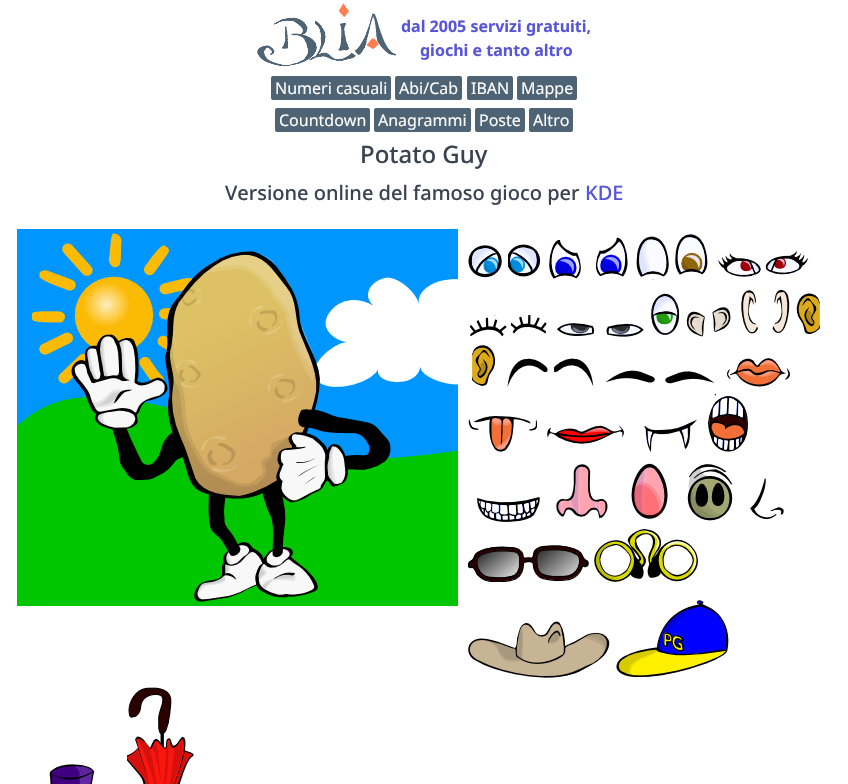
#include "include/core/SkBlurTypes.h"
#include "include/core/SkCanvas.h"
#include "include/core/SkData.h"
#include "include/core/SkFont.h"
#include "include/core/SkFontMgr.h"
#include "include/core/SkImage.h"
#include "include/core/SkMaskFilter.h"
#include "include/core/SkPaint.h"
#include "include/core/SkPathBuilder.h"
#include "include/core/SkTextBlob.h"
#include "include/effects/SkDashPathEffect.h"
#include "include/effects/SkGradientShader.h"
#include "include/utils/SkParsePath.h"

extern sk_sp<SkFontMgr> fontMgr;

void draw(SkCanvas* canvas) {
    SkPaint p;
    p.setAntiAlias(true);
    auto font = [&](const char* family, int weight, float size, bool italic = false) {
        SkFontStyle style(weight, SkFontStyle::kNormal_Width,
            italic ? SkFontStyle::kItalic_Slant : SkFontStyle::kUpright_Slant);
        SkFont result(fontMgr->matchFamilyStyle(family, style), size);
        result.setSubpixel(true);
        return result;
    };
    auto drawPhoto = [&](const char* path, float l, float t, float r, float b) {
        auto image = SkImages::DeferredFromEncodedData(SkData::MakeFromFileName(path));
        canvas->drawImageRect(image, SkRect::MakeLTRB(l, t, r, b), SkSamplingOptions());
    };
    canvas->clear(0xFFFFFFFF);
    drawPhoto("media/1.png", 257, 3, 396, 66);
    auto font1 = font("Noto Sans", 700, 16);
    p.setColor(0xFF5755D9);
    canvas->drawString("dal 2005 servizi gratuiti,", 401, 32, font1, p);
    canvas->drawString("giochi e tanto altro", 420, 56, font1, p);
    p.setColor(0xFF4E6475);
    canvas->drawRoundRect(SkRect::MakeLTRB(271, 76, 391, 100), 2, 2, p);
    auto font2 = font("Noto Sans", 400, 16);
    p.setColor(0xFFFFFFFF);
    canvas->drawString("Numeri casuali", 275, 94, font2, p);
    p.setColor(0xFF4E6475);
    canvas->drawRoundRect(SkRect::MakeLTRB(395, 76, 462, 100), 2, 2, p);
    p.setColor(0xFFFFFFFF);
    canvas->drawString("Abi/Cab", 399, 94, font2, p);
    p.setColor(0xFF4E6475);
    canvas->drawRoundRect(SkRect::MakeLTRB(467, 76, 513, 100), 2, 2, p);
    p.setColor(0xFFFFFFFF);
    canvas->drawString("IBAN", 471, 94, font2, p);
    p.setColor(0xFF4E6475);
    canvas->drawRoundRect(SkRect::MakeLTRB(517, 76, 577, 100), 2, 2, p);
    p.setColor(0xFFFFFFFF);
    canvas->drawString("Mappe", 521, 94, font2, p);
    p.setColor(0xFF4E6475);
    canvas->drawRoundRect(SkRect::MakeLTRB(275, 108, 370, 132), 2, 2, p);
    p.setColor(0xFFFFFFFF);
    canvas->drawString("Countdown", 279, 126, font2, p);
    p.setColor(0xFF4E6475);
    canvas->drawRoundRect(SkRect::MakeLTRB(374, 108, 471, 132), 2, 2, p);
    p.setColor(0xFFFFFFFF);
    canvas->drawString("Anagrammi", 378, 126, font2, p);
    p.setColor(0xFF4E6475);
    canvas->drawRoundRect(SkRect::MakeLTRB(475, 108, 525, 132), 2, 2, p);
    p.setColor(0xFFFFFFFF);
    canvas->drawString("Poste", 479, 126, font2, p);
    p.setColor(0xFF4E6475);
    canvas->drawRoundRect(SkRect::MakeLTRB(529, 108, 573, 132), 2, 2, p);
    p.setColor(0xFFFFFFFF);
    canvas->drawString("Altro", 533, 126, font2, p);
    auto font3 = font("Noto Sans", 500, 24);
    p.setColor(0xFF3B4351);
    canvas->drawString("Potato Guy", 360, 163, font3, p);
    auto font4 = font("Noto Sans", 500, 20);
    canvas->drawString("Versione online del famoso gioco per", 225, 200, font4, p);
    p.setColor(0xFF5755D9);
    canvas->drawString("KDE", 585, 200, font4, p);
    drawPhoto("media/2.png", 17, 229, 458, 606);
    drawPhoto("media/3.png", 468, 245, 502, 278);
    drawPhoto("media/4.png", 508, 244, 541, 277);
    drawPhoto("media/5.png", 549, 240, 581, 279);
    drawPhoto("media/6.png", 595, 237, 628, 277);
    drawPhoto("media/7.png", 636, 236, 669, 280);
    drawPhoto("media/8.png", 675, 234, 708, 275);
    drawPhoto("media/9.png", 718, 253, 761, 277);
    drawPhoto("media/10.png", 765, 250, 809, 275);
    drawPhoto("media/11.png", 469, 315, 507, 337);
    drawPhoto("media/12.png", 511, 315, 547, 334);
    drawPhoto("media/13.png", 557, 323, 595, 336);
    drawPhoto("media/14.png", 606, 323, 644, 337);
    drawPhoto("media/15.png", 651, 293, 680, 335);
    drawPhoto("media/16.png", 686, 311, 705, 337);
    drawPhoto("media/17.png", 712, 304, 734, 332);
    drawPhoto("media/18.png", 741, 290, 758, 334);
    drawPhoto("media/19.png", 772, 289, 790, 333);
    drawPhoto("media/20.png", 796, 293, 820, 335);
    drawPhoto("media/21.png", 472, 345, 496, 386);
    drawPhoto("media/22.png", 507, 358, 548, 387);
    drawPhoto("media/23.png", 554, 358, 594, 387);
    drawPhoto("media/24.png", 605, 370, 655, 383);
    drawPhoto("media/25.png", 665, 371, 715, 384);
    drawPhoto("media/26.png", 727, 358, 790, 387);
    drawPhoto("media/27.png", 468, 416, 537, 452);
    drawPhoto("media/28.png", 547, 425, 624, 444);
    drawPhoto("media/29.png", 644, 419, 697, 452);
    drawPhoto("media/30.png", 708, 394, 748, 452);
    drawPhoto("media/31.png", 477, 497, 540, 522);
    drawPhoto("media/32.png", 556, 464, 608, 519);
    drawPhoto("media/33.png", 631, 463, 668, 519);
    drawPhoto("media/34.png", 687, 464, 733, 521);
    drawPhoto("media/35.png", 750, 478, 784, 520);
    drawPhoto("media/36.png", 468, 545, 589, 582);
    drawPhoto("media/37.png", 594, 529, 698, 582);
    drawPhoto("media/38.png", 468, 621, 610, 678);
    drawPhoto("media/39.png", 616, 600, 729, 678);
    drawPhoto("media/40.png", 49, 764, 95, 784);
    drawPhoto("media/41.png", 127, 687, 194, 784);
}
